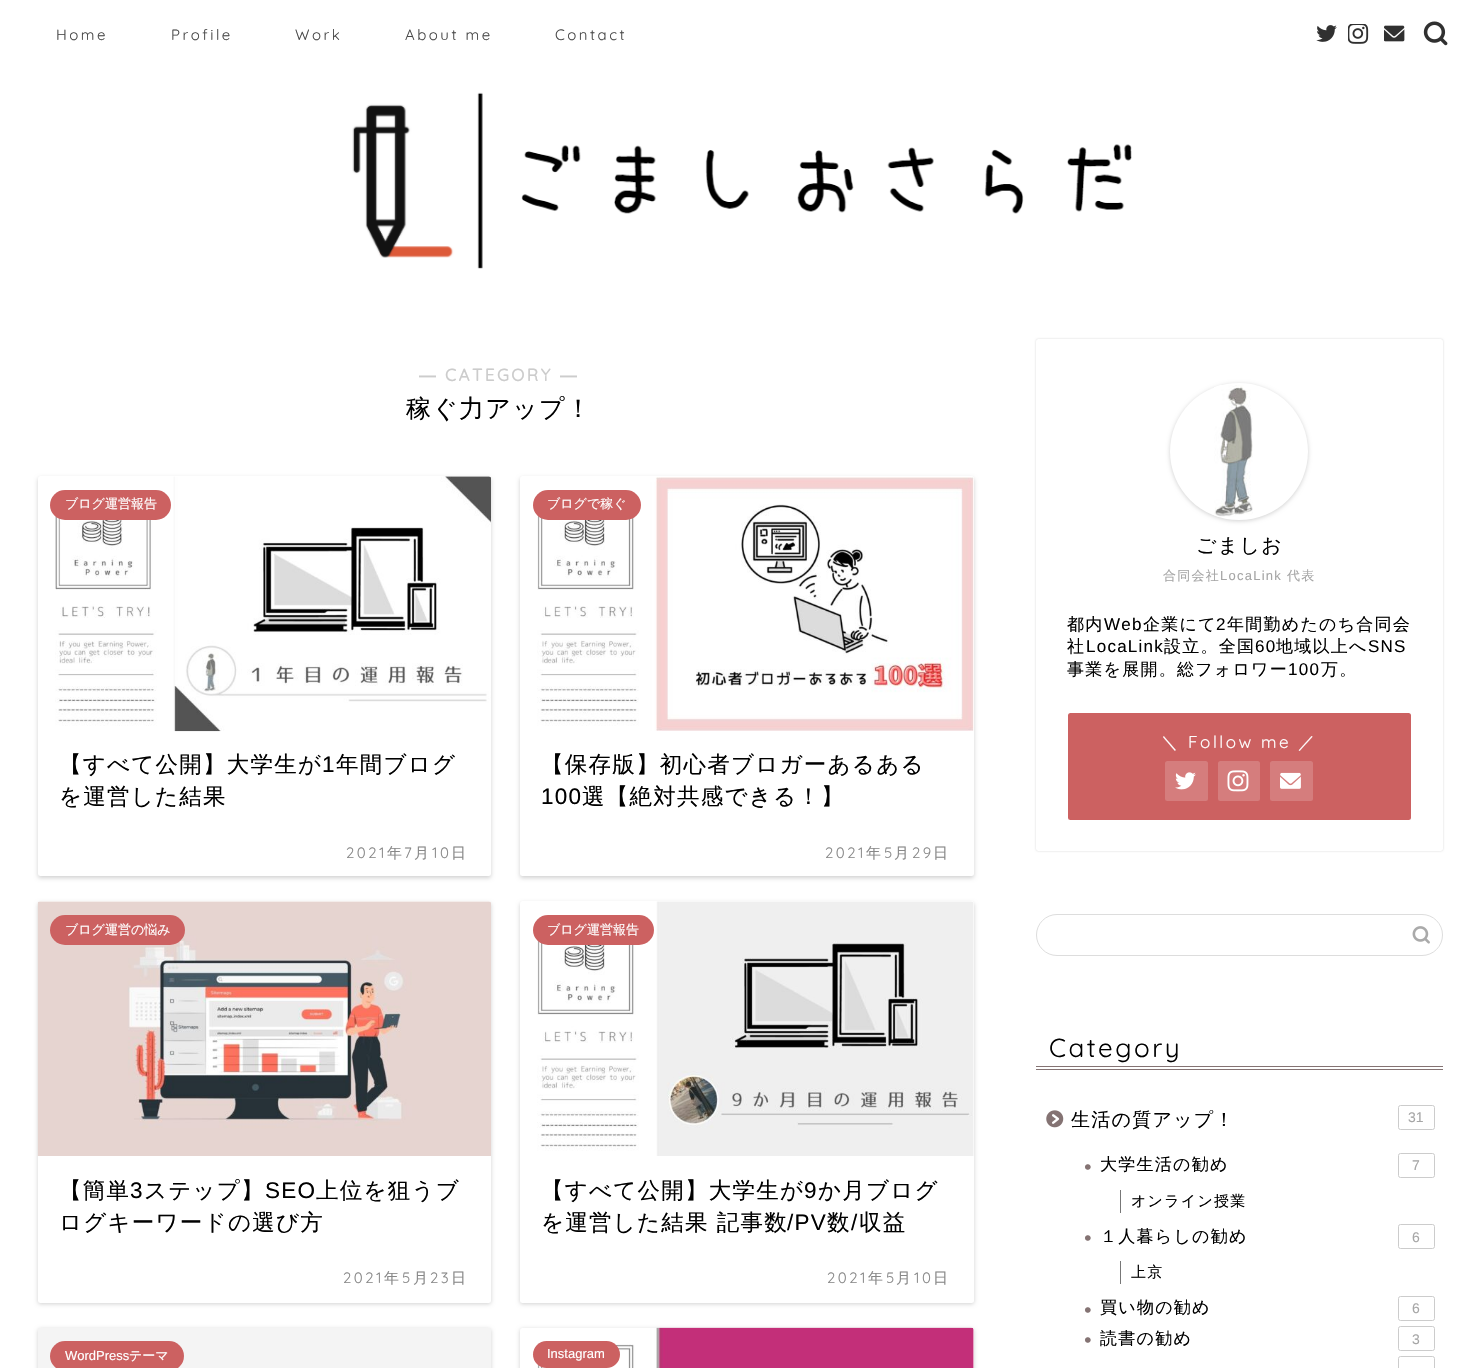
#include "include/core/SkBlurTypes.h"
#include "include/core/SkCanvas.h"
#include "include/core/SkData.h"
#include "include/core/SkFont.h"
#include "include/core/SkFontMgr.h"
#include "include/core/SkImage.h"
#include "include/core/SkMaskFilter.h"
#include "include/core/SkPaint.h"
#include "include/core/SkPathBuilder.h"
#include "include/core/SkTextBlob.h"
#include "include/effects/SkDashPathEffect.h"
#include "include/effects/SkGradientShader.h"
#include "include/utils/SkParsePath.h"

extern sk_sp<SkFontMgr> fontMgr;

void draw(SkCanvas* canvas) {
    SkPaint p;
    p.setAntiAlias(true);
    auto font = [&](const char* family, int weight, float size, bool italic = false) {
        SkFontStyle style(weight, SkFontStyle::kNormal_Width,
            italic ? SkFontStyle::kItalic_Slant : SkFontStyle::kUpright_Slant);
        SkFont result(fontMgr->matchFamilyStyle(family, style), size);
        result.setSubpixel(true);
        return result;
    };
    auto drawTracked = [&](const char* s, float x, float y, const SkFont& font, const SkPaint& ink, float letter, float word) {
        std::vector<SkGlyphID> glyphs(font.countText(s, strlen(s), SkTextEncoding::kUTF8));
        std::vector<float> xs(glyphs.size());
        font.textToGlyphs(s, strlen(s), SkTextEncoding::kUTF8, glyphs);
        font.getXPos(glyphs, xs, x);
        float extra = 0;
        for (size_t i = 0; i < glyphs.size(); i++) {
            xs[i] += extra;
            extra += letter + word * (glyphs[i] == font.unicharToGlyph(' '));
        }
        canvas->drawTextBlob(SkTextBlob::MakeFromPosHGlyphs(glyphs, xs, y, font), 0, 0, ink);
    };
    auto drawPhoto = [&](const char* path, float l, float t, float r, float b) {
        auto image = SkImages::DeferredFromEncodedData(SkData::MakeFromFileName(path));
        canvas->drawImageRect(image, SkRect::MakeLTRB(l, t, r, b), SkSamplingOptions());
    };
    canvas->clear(0xFFFFFFFF);
    auto font1 = font("Quicksand", 300, 15);
    p.setColor(0xFF494949);
    {
        const struct { const char* s; float x, y; } items[] = {
            {"Home", 56, 40},
            {"Profile", 171, 40},
            {"Work", 295, 40},
            {"About me", 405, 40},
            {"Contact", 555, 40},
        };
        for (auto [s, x, y] : items) {
            drawTracked(s, x, y, font1, p, 2.5f, 0);
        }
    }
    drawPhoto("media/1.png", 1316, 25, 1337, 42);
    drawPhoto("media/2.png", 1348, 24, 1369, 44);
    drawPhoto("media/3.png", 1384, 25, 1405, 42);
    drawPhoto("media/4.png", 1423, 21, 1448, 46);
    drawPhoto("media/5.png", 352, 92, 1132, 269);
    auto font2 = font("Liberation Sans", 700, 17);
    p.setColor(0xFFCCCCCC);
    drawTracked("―", 419, 381, font2, p, 2.5f, 0);
    auto font3 = font("Quicksand", 700, 17);
    drawTracked("CATEGORY", 445, 381, font3, p, 2.5f, 0);
    drawTracked("―", 560, 381, font2, p, 2.5f, 0);
    auto font4 = font("WenQuanYi Zen Hei", 500, 25);
    p.setColor(0xFF000000);
    drawTracked("稼ぐ力アップ！", 406, 417, font4, p, 1.25f, 0);
    p.setColor(0x2E000000);
    p.setMaskFilter(SkMaskFilter::MakeBlur(kNormal_SkBlurStyle, 2));
    canvas->drawRoundRect(SkRect::MakeLTRB(38, 478, 491, 878), 2.5f, 2.5f, p);
    p.setMaskFilter(nullptr);
    p.setColor(0xFFFFFFFF);
    canvas->drawRoundRect(SkRect::MakeLTRB(38, 476, 491, 876), 2.5f, 2.5f, p);
    drawPhoto("media/6.png", 55, 476, 491, 732);
    p.setColor(0xFFCC6161);
    canvas->drawRoundRect(SkRect::MakeLTRB(50, 490, 171, 520), 15, 15, p);
    auto font5 = font("WenQuanYi Zen Hei", 500, 13);
    p.setColor(0xFFFFFFFF);
    canvas->drawString("ブログ運営報告", 65, 508, font5, p);
    auto font6 = font("WenQuanYi Zen Hei", 500, 22.5f);
    p.setColor(0xFF000000);
    drawTracked("【すべて公開】大学生が", 59, 772, font6, p, 1.25f, 0);
    auto font7 = font("Liberation Sans", 400, 22.5f);
    drawTracked("1", 322, 772, font7, p, 1.25f, 0);
    drawTracked("年間ブログ", 336, 772, font6, p, 1.25f, 0);
    drawTracked("を運営した結果", 59, 804, font6, p, 1.25f, 0);
    p.setColor(0xFF888888);
    drawTracked("2021", 346, 858, font1, p, 2.5f, 0);
    auto font8 = font("WenQuanYi Zen Hei", 500, 15);
    drawTracked("年", 387, 858, font8, p, 2.5f, 0);
    drawTracked("7", 404, 858, font1, p, 2.5f, 0);
    drawTracked("月", 414, 858, font8, p, 2.5f, 0);
    drawTracked("10", 432, 858, font1, p, 2.5f, 0);
    drawTracked("日", 451, 858, font8, p, 2.5f, 0);
    p.setColor(0x2E000000);
    p.setMaskFilter(SkMaskFilter::MakeBlur(kNormal_SkBlurStyle, 2));
    canvas->drawRoundRect(SkRect::MakeLTRB(520, 478, 974, 878), 2.5f, 2.5f, p);
    p.setMaskFilter(nullptr);
    p.setColor(0xFFFFFFFF);
    canvas->drawRoundRect(SkRect::MakeLTRB(520, 476, 974, 876), 2.5f, 2.5f, p);
    drawPhoto("media/7.png", 537, 477, 974, 731);
    p.setColor(0xFFCC6161);
    canvas->drawRoundRect(SkRect::MakeLTRB(533, 490, 641, 520), 15, 15, p);
    p.setColor(0xFFFFFFFF);
    canvas->drawString("ブログで稼ぐ", 547, 508, font5, p);
    p.setColor(0xFF000000);
    drawTracked("【保存版】初心者ブロガーあるある", 541, 772, font6, p, 1.25f, 0);
    drawTracked("100", 541, 804, font7, p, 1.25f, 0);
    drawTracked("選【絶対共感できる！】", 582, 804, font6, p, 1.25f, 0);
    p.setColor(0xFF888888);
    drawTracked("2021", 825, 858, font1, p, 2.5f, 0);
    drawTracked("年", 866, 858, font8, p, 2.5f, 0);
    drawTracked("5", 884, 858, font1, p, 2.5f, 0);
    drawTracked("月", 894, 858, font8, p, 2.5f, 0);
    drawTracked("29", 912, 858, font1, p, 2.5f, 0);
    drawTracked("日", 933, 858, font8, p, 2.5f, 0);
    p.setColor(0x2E000000);
    p.setMaskFilter(SkMaskFilter::MakeBlur(kNormal_SkBlurStyle, 2));
    canvas->drawRoundRect(SkRect::MakeLTRB(38, 903, 491, 1304), 2.5f, 2.5f, p);
    p.setMaskFilter(nullptr);
    p.setColor(0xFFFFFFFF);
    canvas->drawRoundRect(SkRect::MakeLTRB(38, 901, 491, 1303), 2.5f, 2.5f, p);
    drawPhoto("media/8.png", 37, 901, 491, 1156);
    p.setColor(0xFFCC6161);
    canvas->drawRoundRect(SkRect::MakeLTRB(50, 915, 185, 945), 15, 15, p);
    p.setColor(0xFFFFFFFF);
    canvas->drawString("ブログ運営の悩み", 65, 934, font5, p);
    p.setColor(0xFF000000);
    drawTracked("【簡単", 59, 1198, font6, p, 1.25f, 0);
    drawTracked("3", 130, 1198, font7, p, 1.25f, 0);
    drawTracked("ステップ】", 144, 1198, font6, p, 1.25f, 0);
    drawTracked("SEO", 265, 1198, font7, p, 1.25f, 0);
    drawTracked("上位を狙うブ", 316, 1198, font6, p, 1.25f, 0);
    drawTracked("ログキーワードの選び方", 59, 1230, font6, p, 1.25f, 0);
    p.setColor(0xFF888888);
    drawTracked("2021", 343, 1283, font1, p, 2.5f, 0);
    drawTracked("年", 384, 1283, font8, p, 2.5f, 0);
    drawTracked("5", 402, 1283, font1, p, 2.5f, 0);
    drawTracked("月", 413, 1283, font8, p, 2.5f, 0);
    drawTracked("23", 430, 1283, font1, p, 2.5f, 0);
    drawTracked("日", 451, 1283, font8, p, 2.5f, 0);
    p.setColor(0x2E000000);
    p.setMaskFilter(SkMaskFilter::MakeBlur(kNormal_SkBlurStyle, 2));
    canvas->drawRoundRect(SkRect::MakeLTRB(520, 903, 974, 1304), 2.5f, 2.5f, p);
    p.setMaskFilter(nullptr);
    p.setColor(0xFFFFFFFF);
    canvas->drawRoundRect(SkRect::MakeLTRB(520, 901, 974, 1303), 2.5f, 2.5f, p);
    drawPhoto("media/9.png", 537, 901, 974, 1156);
    p.setColor(0xFFCC6161);
    canvas->drawRoundRect(SkRect::MakeLTRB(533, 915, 654, 945), 15, 15, p);
    p.setColor(0xFFFFFFFF);
    canvas->drawString("ブログ運営報告", 547, 934, font5, p);
    p.setColor(0xFF000000);
    drawTracked("【すべて公開】大学生が", 541, 1198, font6, p, 1.25f, 0);
    drawTracked("9", 804, 1198, font7, p, 1.25f, 0);
    drawTracked("か月ブログ", 818, 1198, font6, p, 1.25f, 0);
    drawTracked("を運営した結果 記事数", 541, 1230, font6, p, 1.25f, 0);
    drawTracked("/PV", 787, 1230, font7, p, 1.25f, 0);
    drawTracked("数", 827, 1230, font6, p, 1.25f, 0);
    drawTracked("/", 851, 1230, font7, p, 1.25f, 0);
    drawTracked("収益", 859, 1230, font6, p, 1.25f, 0);
    p.setColor(0xFF888888);
    drawTracked("2021", 827, 1283, font1, p, 2.5f, 0);
    drawTracked("年", 868, 1283, font8, p, 2.5f, 0);
    drawTracked("5", 886, 1283, font1, p, 2.5f, 0);
    drawTracked("月", 896, 1283, font8, p, 2.5f, 0);
    drawTracked("10", 914, 1283, font1, p, 2.5f, 0);
    drawTracked("日", 933, 1283, font8, p, 2.5f, 0);
    p.setColor(0x2E000000);
    p.setMaskFilter(SkMaskFilter::MakeBlur(kNormal_SkBlurStyle, 2));
    canvas->drawRoundRect(SkRect::MakeLTRB(38, 1329, 491, 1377), 2.5f, 2.5f, p);
    p.setMaskFilter(nullptr);
    p.setColor(0xFFF4F4F4);
    canvas->drawRect(SkRect::MakeLTRB(38, 1328, 491, 1368), p);
    p.setColor(0xFFCC6161);
    canvas->drawRoundRect(SkRect::MakeLTRB(50, 1341, 184, 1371), 15, 15, p);
    auto font9 = font("Liberation Sans", 400, 13);
    p.setColor(0xFFFFFFFF);
    canvas->drawString("WordPress", 65, 1360, font9, p);
    canvas->drawString("テーマ", 129, 1360, font5, p);
    p.setColor(0x2E000000);
    p.setMaskFilter(SkMaskFilter::MakeBlur(kNormal_SkBlurStyle, 2));
    canvas->drawRoundRect(SkRect::MakeLTRB(520, 1329, 974, 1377), 2.5f, 2.5f, p);
    p.setMaskFilter(nullptr);
    p.setColor(0xFFFFFFFF);
    canvas->drawRoundRect(SkRect::MakeLTRB(520, 1328, 974, 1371), 2.5f, 2.5f, p);
    drawPhoto("media/10.png", 537, 1327, 974, 1368);
    p.setColor(0xFFCC6161);
    canvas->drawRoundRect(SkRect::MakeLTRB(533, 1341, 620, 1368), 13.5f, 13.5f, p);
    p.setColor(0xFFFFFFFF);
    canvas->drawString("Instagram", 547, 1358, font9, p);
    p.setColor(0x2E000000);
    p.setMaskFilter(SkMaskFilter::MakeBlur(kNormal_SkBlurStyle, 1));
    canvas->drawRoundRect(SkRect::MakeLTRB(1036, 339, 1443, 851), 2.5f, 2.5f, p);
    p.setMaskFilter(nullptr);
    p.setColor(0xFFFFFFFF);
    canvas->drawRoundRect(SkRect::MakeLTRB(1036, 339, 1443, 851), 2.5f, 2.5f, p);
    p.setColor(0x2E000000);
    p.setMaskFilter(SkMaskFilter::MakeBlur(kNormal_SkBlurStyle, 2));
    canvas->drawRoundRect(SkRect::MakeLTRB(1170, 384, 1308, 521), 68.5f, 68.5f, p);
    p.setMaskFilter(nullptr);
    p.setColor(0xFFFFFFFF);
    canvas->drawRoundRect(SkRect::MakeLTRB(1170, 383, 1308, 520), 68.5f, 68.5f, p);
    drawPhoto("media/11.png", 1214, 385, 1253, 517);
    auto font10 = font("WenQuanYi Zen Hei", 500, 20);
    p.setColor(0xFF000000);
    drawTracked("ごましお", 1196, 552, font10, p, 1.25f, 0);
    p.setColor(0xFFA6A6A6);
    drawTracked("合同会社", 1163, 580, font5, p, 1.25f, 0);
    drawTracked("LocaLink", 1220, 580, font9, p, 1.25f, 0);
    drawTracked("代表", 1287, 580, font5, p, 1.25f, 0);
    auto font11 = font("WenQuanYi Zen Hei", 500, 17);
    p.setColor(0xFF000000);
    drawTracked("都内", 1067, 630, font11, p, 1.25f, 0);
    auto font12 = font("Liberation Sans", 400, 17);
    drawTracked("Web", 1104, 630, font12, p, 1.25f, 0);
    drawTracked("企業にて", 1143, 630, font11, p, 1.25f, 0);
    drawTracked("2", 1216, 630, font12, p, 1.25f, 0);
    drawTracked("年間勤めたのち合同会", 1227, 630, font11, p, 1.25f, 0);
    drawTracked("社", 1067, 652, font11, p, 1.25f, 0);
    drawTracked("LocaLink", 1086, 652, font12, p, 1.25f, 0);
    drawTracked("設立。全国", 1164, 652, font11, p, 1.25f, 0);
    drawTracked("60", 1255, 652, font12, p, 1.25f, 0);
    drawTracked("地域以上へ", 1276, 652, font11, p, 1.25f, 0);
    drawTracked("SNS", 1368, 652, font12, p, 1.25f, 0);
    drawTracked("事業を展開。総フォロワー", 1067, 675, font11, p, 1.25f, 0);
    drawTracked("100", 1288, 675, font12, p, 1.25f, 0);
    drawTracked("万。", 1321, 675, font11, p, 1.25f, 0);
    p.setColor(0xFFCC6161);
    canvas->drawRoundRect(SkRect::MakeLTRB(1068, 713, 1411, 820), 2.5f, 2.5f, p);
    p.setColor(0xFFFFFFFF);
    drawTracked("＼", 1161, 748, font11, p, 2.5f, 0);
    auto font13 = font("Quicksand", 300, 17);
    drawTracked("Follow me", 1188, 748, font13, p, 2.5f, 0);
    drawTracked("／", 1298, 748, font11, p, 2.5f, 0);
    p.setColor(0xFFD57D7D);
    canvas->drawRoundRect(SkRect::MakeLTRB(1165, 761, 1208, 801), 2.5f, 2.5f, p);
    drawPhoto("media/12.png", 1175, 772, 1196, 790);
    canvas->drawRoundRect(SkRect::MakeLTRB(1218, 761, 1260, 801), 2.5f, 2.5f, p);
    drawPhoto("media/13.png", 1227, 770, 1249, 792);
    canvas->drawRoundRect(SkRect::MakeLTRB(1270, 761, 1313, 801), 2.5f, 2.5f, p);
    drawPhoto("media/14.png", 1280, 772, 1301, 789);
    p.setStyle(SkPaint::kStroke_Style);
    p.setStrokeWidth(1);
    p.setColor(0xFFDDDDDD);
    canvas->drawRoundRect(SkRect::MakeLTRB(1036.5f, 914.5f, 1442.5f, 955.5f), 20.5f, 20.5f, p);
    drawPhoto("media/15.png", 1412, 926, 1430, 944);
    p.setStyle(SkPaint::kFill_Style);
    p.setColor(0xFF847373);
    canvas->drawRect(SkRect::MakeLTRB(1036, 1066, 1443, 1067), p);
    canvas->drawRect(SkRect::MakeLTRB(1036, 1069, 1443, 1070), p);
    auto font14 = font("Quicksand", 300, 26);
    p.setColor(0xFF000000);
    drawTracked("Category", 1049, 1057, font14, p, 2.5f, 0);
    drawPhoto("media/16.png", 1046, 1110, 1064, 1128);
    auto font15 = font("WenQuanYi Zen Hei", 500, 19);
    drawTracked("生活の質アップ！", 1071, 1126, font15, p, 1.25f, 0);
    p.setStyle(SkPaint::kStroke_Style);
    p.setColor(0xFFCCCCCC);
    canvas->drawRoundRect(SkRect::MakeLTRB(1398.5f, 1105.5f, 1434.5f, 1129.5f), 2, 2, p);
    auto font16 = font("Liberation Sans", 400, 14);
    p.setStyle(SkPaint::kFill_Style);
    p.setColor(0xFFA6A6A6);
    canvas->drawString("31", 1408, 1122, font16, p);
    auto font17 = font("WenQuanYi Zen Hei", 700, 30);
    p.setColor(0xFF847373);
    drawTracked("・", 1072, 1178, font17, p, 1.25f, 0);
    p.setColor(0xFF000000);
    drawTracked("大学生活の勧め", 1100, 1170, font11, p, 1.25f, 0);
    p.setStyle(SkPaint::kStroke_Style);
    p.setColor(0xFFCCCCCC);
    canvas->drawRoundRect(SkRect::MakeLTRB(1398.5f, 1153.5f, 1434.5f, 1177.5f), 2, 2, p);
    p.setStyle(SkPaint::kFill_Style);
    p.setColor(0xFFA6A6A6);
    canvas->drawString("7", 1412, 1170, font16, p);
    p.setColor(0xFF777777);
    canvas->drawRect(SkRect::MakeLTRB(1120, 1190, 1121, 1213), p);
    p.setColor(0xFF000000);
    drawTracked("オンライン授業", 1131, 1206, font8, p, 1.25f, 0);
    p.setColor(0xFF847373);
    drawTracked("・", 1072, 1249, font17, p, 1.25f, 0);
    p.setColor(0xFF000000);
    drawTracked("１人暮らしの勧め", 1100, 1242, font11, p, 1.25f, 0);
    p.setStyle(SkPaint::kStroke_Style);
    p.setColor(0xFFCCCCCC);
    canvas->drawRoundRect(SkRect::MakeLTRB(1398.5f, 1224.5f, 1434.5f, 1248.5f), 2, 2, p);
    p.setStyle(SkPaint::kFill_Style);
    p.setColor(0xFFA6A6A6);
    canvas->drawString("6", 1412, 1242, font16, p);
    p.setColor(0xFF777777);
    canvas->drawRect(SkRect::MakeLTRB(1120, 1261, 1121, 1284), p);
    p.setColor(0xFF000000);
    drawTracked("上京", 1131, 1277, font8, p, 1.25f, 0);
    p.setColor(0xFF847373);
    drawTracked("・", 1072, 1321, font17, p, 1.25f, 0);
    p.setColor(0xFF000000);
    drawTracked("買い物の勧め", 1100, 1313, font11, p, 1.25f, 0);
    p.setStyle(SkPaint::kStroke_Style);
    p.setColor(0xFFCCCCCC);
    canvas->drawRoundRect(SkRect::MakeLTRB(1398.5f, 1296.5f, 1434.5f, 1320.5f), 2, 2, p);
    p.setStyle(SkPaint::kFill_Style);
    p.setColor(0xFFA6A6A6);
    canvas->drawString("6", 1412, 1313, font16, p);
    p.setColor(0xFF847373);
    drawTracked("・", 1072, 1351, font17, p, 1.25f, 0);
    p.setColor(0xFF000000);
    drawTracked("読書の勧め", 1100, 1344, font11, p, 1.25f, 0);
    p.setStyle(SkPaint::kStroke_Style);
    p.setColor(0xFFCCCCCC);
    canvas->drawRoundRect(SkRect::MakeLTRB(1398.5f, 1326.5f, 1434.5f, 1350.5f), 2, 2, p);
    p.setStyle(SkPaint::kFill_Style);
    p.setColor(0xFFA6A6A6);
    canvas->drawString("3", 1412, 1344, font16, p);
    p.setStyle(SkPaint::kStroke_Style);
    p.setColor(0xFFCCCCCC);
    canvas->drawRoundRect(SkRect::MakeLTRB(1398.5f, 1356.5f, 1434.5f, 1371.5f), 2, 2, p);
}
